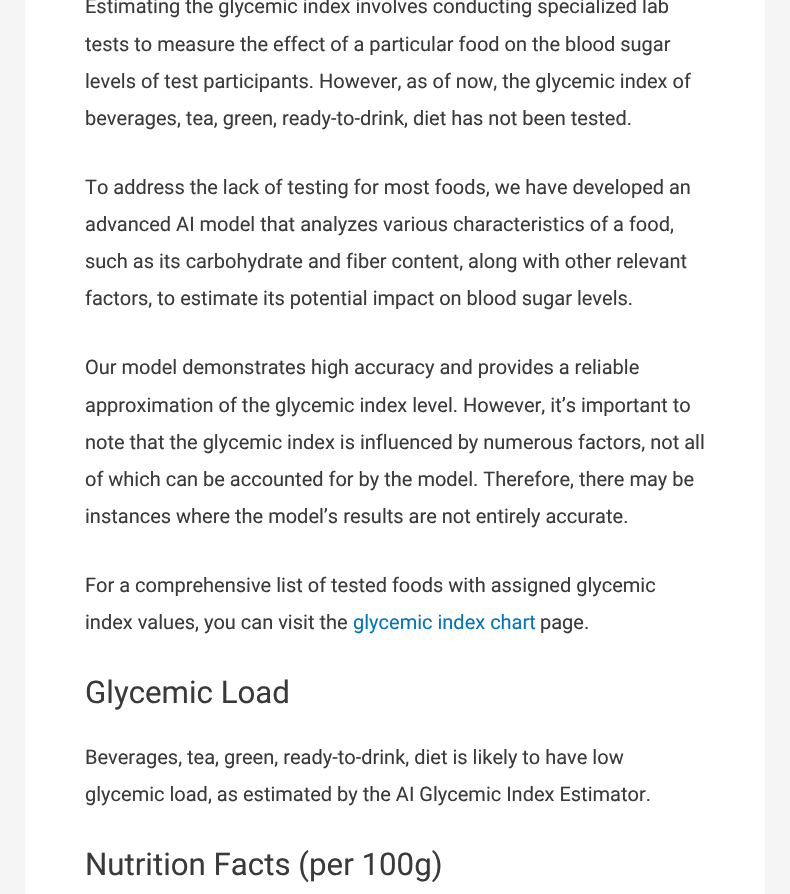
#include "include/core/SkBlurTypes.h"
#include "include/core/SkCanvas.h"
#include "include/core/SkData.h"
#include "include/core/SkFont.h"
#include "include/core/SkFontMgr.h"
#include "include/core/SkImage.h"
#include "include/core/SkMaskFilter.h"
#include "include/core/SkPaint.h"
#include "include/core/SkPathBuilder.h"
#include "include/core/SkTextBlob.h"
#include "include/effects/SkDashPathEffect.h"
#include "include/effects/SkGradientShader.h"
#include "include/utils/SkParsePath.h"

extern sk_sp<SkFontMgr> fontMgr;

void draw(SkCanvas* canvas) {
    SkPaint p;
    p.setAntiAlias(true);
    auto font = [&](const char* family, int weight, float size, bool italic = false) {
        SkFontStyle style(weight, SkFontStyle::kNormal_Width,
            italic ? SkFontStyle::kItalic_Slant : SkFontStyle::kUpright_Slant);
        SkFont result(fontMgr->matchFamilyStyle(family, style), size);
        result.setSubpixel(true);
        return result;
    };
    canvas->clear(0xFFF5F5F5);
    p.setColor(0xFFFFFFFF);
    canvas->drawRect(SkRect::MakeLTRB(25, 0, 765, 894), p);
    auto font1 = font("Roboto", 400, 20);
    p.setColor(0xFF3A3A3A);
    {
        const struct { const char* s; float x, y; } items[] = {
            {"Estimating the glycemic index involves conducting specialized lab", 85, 13},
            {"tests to measure the effect of a particular food on the blood sugar", 85, 51},
            {"levels of test participants. However, as of now, the glycemic index of", 85, 88},
            {"beverages, tea, green, ready-to-drink, diet has not been tested.", 85, 125},
            {"To address the lack of testing for most foods, we have developed an", 85, 194},
            {"advanced AI model that analyzes various characteristics of a food,", 85, 231},
            {"such as its carbohydrate and fiber content, along with other relevant", 85, 268},
            {"factors, to estimate its potential impact on blood sugar levels.", 85, 305},
            {"Our model demonstrates high accuracy and provides a reliable", 85, 374},
            {"approximation of the glycemic index level. However, it’s important to", 85, 412},
            {"note that the glycemic index is influenced by numerous factors, not all", 85, 449},
            {"of which can be accounted for by the model. Therefore, there may be", 85, 486},
            {"instances where the model’s results are not entirely accurate.", 85, 523},
            {"For a comprehensive list of tested foods with assigned glycemic", 85, 592},
            {"index values, you can visit the", 85, 629},
        };
        for (auto [s, x, y] : items) {
            canvas->drawString(s, x, y, font1, p);
        }
    }
    p.setColor(0xFF0274BE);
    canvas->drawString("glycemic index chart", 353, 629, font1, p);
    p.setColor(0xFF3A3A3A);
    canvas->drawString("page.", 540, 629, font1, p);
    auto font2 = font("Roboto", 400, 31.25f);
    canvas->drawString("Glycemic Load", 85, 703, font2, p);
    canvas->drawString("Beverages, tea, green, ready-to-drink, diet is likely to have low", 85, 764, font1, p);
    canvas->drawString("glycemic load, as estimated by the AI Glycemic Index Estimator.", 85, 801, font1, p);
    canvas->drawString("Nutrition Facts (per 100g)", 85, 875, font2, p);
}
